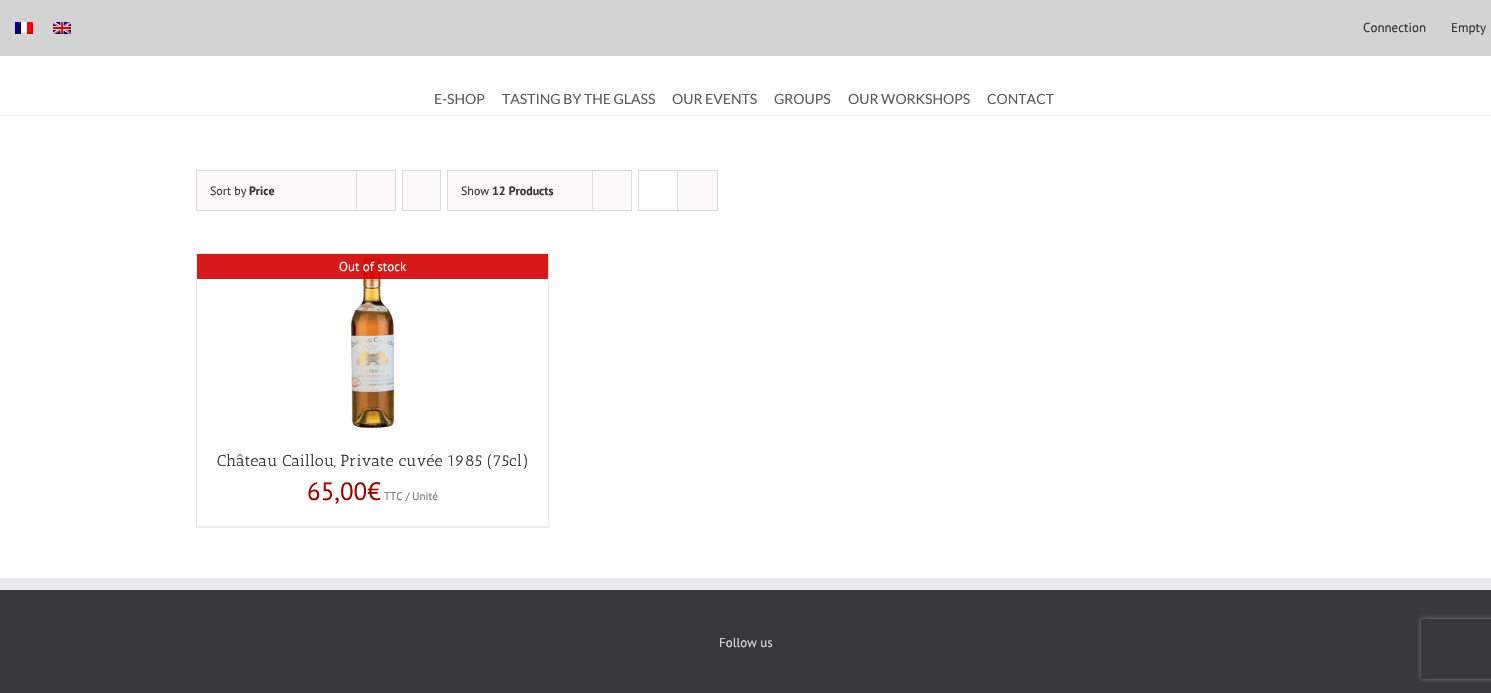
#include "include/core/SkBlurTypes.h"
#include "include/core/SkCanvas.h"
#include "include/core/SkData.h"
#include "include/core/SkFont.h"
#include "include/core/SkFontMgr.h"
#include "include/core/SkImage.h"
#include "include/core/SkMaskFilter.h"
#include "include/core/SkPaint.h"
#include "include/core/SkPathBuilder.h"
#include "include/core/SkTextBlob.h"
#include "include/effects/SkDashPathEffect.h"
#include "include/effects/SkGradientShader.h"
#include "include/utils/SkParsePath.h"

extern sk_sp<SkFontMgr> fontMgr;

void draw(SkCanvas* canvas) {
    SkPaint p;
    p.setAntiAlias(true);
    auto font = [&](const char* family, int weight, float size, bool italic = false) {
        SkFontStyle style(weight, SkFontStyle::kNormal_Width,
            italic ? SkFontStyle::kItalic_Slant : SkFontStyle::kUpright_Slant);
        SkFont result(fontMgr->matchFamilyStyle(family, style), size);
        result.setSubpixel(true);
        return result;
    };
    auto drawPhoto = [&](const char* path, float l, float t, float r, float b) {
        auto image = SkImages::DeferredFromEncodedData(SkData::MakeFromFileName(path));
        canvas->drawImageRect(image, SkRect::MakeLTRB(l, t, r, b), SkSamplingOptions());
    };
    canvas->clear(0xFFD3D3D3);
    drawPhoto("media/1.png", 15, 22, 33, 34);
    drawPhoto("media/2.png", 53, 22, 71, 34);
    auto font1 = font("PT Sans", 400, 13);
    p.setColor(0xFF333333);
    canvas->drawString("Connection", 1363, 32, font1, p);
    canvas->drawString("Empty", 1451, 32, font1, p);
    p.setColor(0xFFFFFFFF);
    canvas->drawRect(SkRect::MakeLTRB(0, 56, 1491, 578), p);
    canvas->save();
    canvas->clipRect(SkRect::MakeLTRB(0, 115, 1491, 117));
    p.setColor(0xFFF0F0F0);
    p.setMaskFilter(SkMaskFilter::MakeBlur(kNormal_SkBlurStyle, 0.5f));
    canvas->drawRect(SkRect::MakeLTRB(0, 76, 1491, 116), p);
    p.setMaskFilter(nullptr);
    canvas->restore();
    auto font2 = font("Lato", 400, 14);
    p.setColor(0xFF5B5B5B);
    {
        const struct { const char* s; float x, y; } items[] = {
            {"E-SHOP", 434, 104},
            {"TASTING BY THE GLASS", 502, 104},
            {"OUR EVENTS", 672, 104},
            {"GROUPS", 774, 104},
            {"OUR WORKSHOPS", 848, 104},
            {"CONTACT", 987, 104},
        };
        for (auto [s, x, y] : items) {
            canvas->drawString(s, x, y, font2, p);
        }
    }
    p.setColor(0xFFFBFAF9);
    canvas->drawRect(SkRect::MakeLTRB(196.5f, 170.5f, 395.5f, 210.5f), p);
    p.setStyle(SkPaint::kStroke_Style);
    p.setStrokeWidth(1);
    p.setColor(0xFFDBDBDB);
    canvas->drawRect(SkRect::MakeLTRB(196.5f, 170.5f, 395.5f, 210.5f), p);
    auto font3 = font("PT Sans", 400, 12);
    p.setStyle(SkPaint::kFill_Style);
    p.setColor(0xFF333333);
    canvas->drawString("Sort by", 210, 195, font3, p);
    auto font4 = font("PT Sans", 700, 12);
    canvas->drawString("Price", 249, 195, font4, p);
    p.setColor(0xFFDBDBDB);
    canvas->drawRect(SkRect::MakeLTRB(356, 170, 357, 209), p);
    p.setColor(0xFFFBFAF9);
    canvas->drawRect(SkRect::MakeLTRB(402.5f, 170.5f, 440.5f, 210.5f), p);
    p.setStyle(SkPaint::kStroke_Style);
    p.setColor(0xFFDBDBDB);
    canvas->drawRect(SkRect::MakeLTRB(402.5f, 170.5f, 440.5f, 210.5f), p);
    p.setStyle(SkPaint::kFill_Style);
    p.setColor(0xFFFBFAF9);
    canvas->drawRect(SkRect::MakeLTRB(447.5f, 170.5f, 631.5f, 210.5f), p);
    p.setStyle(SkPaint::kStroke_Style);
    p.setColor(0xFFDBDBDB);
    canvas->drawRect(SkRect::MakeLTRB(447.5f, 170.5f, 631.5f, 210.5f), p);
    p.setStyle(SkPaint::kFill_Style);
    p.setColor(0xFF333333);
    canvas->drawString("Show", 461, 195, font3, p);
    canvas->drawString("12 Products", 492, 195, font4, p);
    p.setColor(0xFFDBDBDB);
    canvas->drawRect(SkRect::MakeLTRB(592, 170, 593, 209), p);
    p.setStyle(SkPaint::kStroke_Style);
    canvas->drawRect(SkRect::MakeLTRB(638.5f, 170.5f, 717.5f, 210.5f), p);
    p.setStyle(SkPaint::kFill_Style);
    {
        const struct { float l, t, r, b; SkColor color; } items[] = {
            {677, 171, 678, 210, 0xFFDBDBDB},
            {678, 171, 717, 210, 0xFFFBFAF9},
            {196, 253, 549, 254, 0xFFEBEAEA},
            {548, 253, 549, 528, 0xFFEBEAEA},
            {196, 526, 549, 528, 0xFFEBEAEA},
            {196, 253, 197, 528, 0xFFEBEAEA},
        };
        for (auto [l, t, r, b, color] : items) {
            p.setColor(color);
            canvas->drawRect(SkRect::MakeLTRB(l, t, r, b), p);
        }
    }
    drawPhoto("media/3.png", 350, 257, 395, 429);
    p.setColor(0xE6D20000);
    canvas->drawRect(SkRect::MakeLTRB(197, 254, 548, 279), p);
    p.setColor(0xFFFFFFFF);
    canvas->drawString("Out of stock", 339, 271, font1, p);
    auto font5 = font("Antic Slab", 400, 16);
    p.setColor(0xFF333333);
    canvas->drawString("Château Caillou, Private cuvée 1985 (75cl)", 217, 466, font5, p);
    auto font6 = font("PT Sans", 400, 25);
    p.setColor(0xFF980200);
    canvas->drawString("65,00€", 307, 500, font6, p);
    auto font7 = font("PT Sans", 400, 11);
    p.setColor(0xFF747474);
    canvas->drawString("TTC / Unité", 384, 500, font7, p);
    p.setColor(0xFF363839);
    canvas->drawRect(SkRect::MakeLTRB(0, 590, 1491, 693), p);
    p.setColor(0xFFE9EAEE);
    canvas->drawRect(SkRect::MakeLTRB(0, 578, 1491, 590), p);
    p.setColor(0xFFDDDDDD);
    canvas->drawString("Follow us", 719, 647, font1, p);
    canvas->save();
    canvas->clipPath(SkPathBuilder(SkPathFillType::kEvenOdd).moveTo(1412, 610).lineTo(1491, 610).lineTo(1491, 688).lineTo(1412, 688).close().moveTo(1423, 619).lineTo(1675, 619).cubicTo(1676, 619, 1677, 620, 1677, 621).lineTo(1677, 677).cubicTo(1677, 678, 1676, 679, 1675, 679).lineTo(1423, 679).cubicTo(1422, 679, 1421, 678, 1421, 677).lineTo(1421, 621).cubicTo(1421, 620, 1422, 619, 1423, 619).close().detach(), true);
    p.setColor(0xFF808080);
    p.setMaskFilter(SkMaskFilter::MakeBlur(kNormal_SkBlurStyle, 2.5f));
    canvas->drawRoundRect(SkRect::MakeLTRB(1421, 619, 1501, 679), 2, 2, p);
    p.setMaskFilter(nullptr);
    canvas->restore();
}
